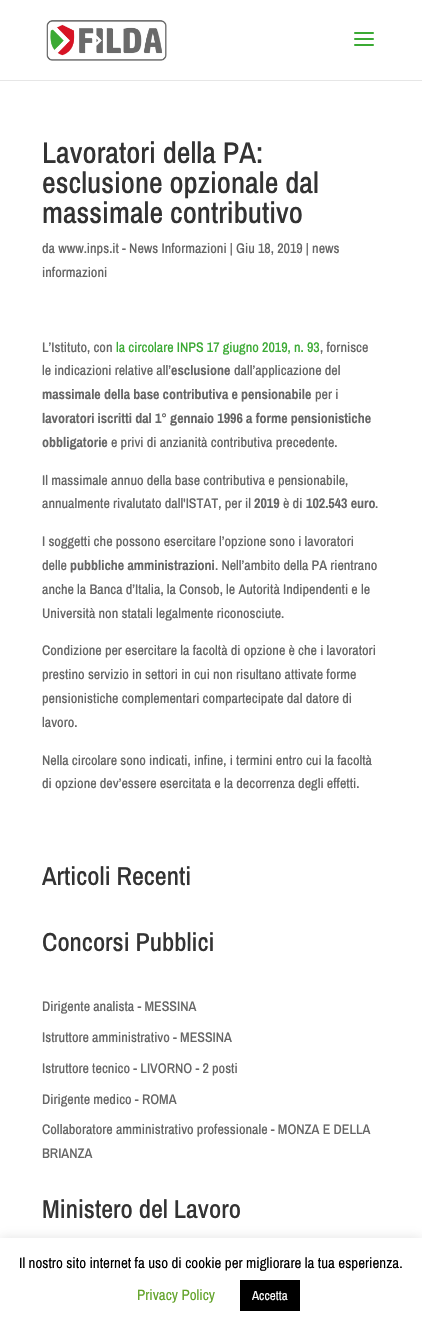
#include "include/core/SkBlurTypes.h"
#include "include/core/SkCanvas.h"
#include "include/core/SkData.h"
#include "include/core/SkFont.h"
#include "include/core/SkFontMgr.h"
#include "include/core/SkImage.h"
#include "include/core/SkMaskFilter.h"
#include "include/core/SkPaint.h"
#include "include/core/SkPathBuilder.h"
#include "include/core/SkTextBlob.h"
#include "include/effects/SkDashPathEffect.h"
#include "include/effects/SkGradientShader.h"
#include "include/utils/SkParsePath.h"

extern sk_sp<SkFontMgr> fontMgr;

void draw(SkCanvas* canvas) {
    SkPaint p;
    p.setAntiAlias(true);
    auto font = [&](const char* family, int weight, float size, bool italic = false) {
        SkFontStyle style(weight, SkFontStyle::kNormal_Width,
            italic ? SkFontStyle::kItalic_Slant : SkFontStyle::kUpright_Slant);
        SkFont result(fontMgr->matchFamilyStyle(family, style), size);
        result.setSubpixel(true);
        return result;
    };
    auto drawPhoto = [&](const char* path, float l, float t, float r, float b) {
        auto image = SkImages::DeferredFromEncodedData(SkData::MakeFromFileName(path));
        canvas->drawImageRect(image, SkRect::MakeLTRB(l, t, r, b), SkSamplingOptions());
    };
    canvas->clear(0xFFFFFFFF);
    p.setColor(0xFFE6E6E6);
    canvas->drawRect(SkRect::MakeLTRB(0, 80, 422, 81), p);
    drawPhoto("media/1.png", 46, 20, 167, 61);
    drawPhoto("media/2.png", 354, 32, 374, 46);
    auto font1 = font("Archivo Narrow", 500, 30);
    p.setColor(0xFF333333);
    {
        const struct { const char* s; float x, y; } items[] = {
            {"Lavoratori della PA:", 42, 163},
            {"esclusione opzionale dal", 42, 193},
            {"massimale contributivo", 42, 223},
        };
        for (auto [s, x, y] : items) {
            canvas->drawString(s, x, y, font1, p);
        }
    }
    auto font2 = font("Archivo Narrow", 500, 14);
    p.setColor(0xFF666666);
    {
        const struct { const char* s; float x, y; } items[] = {
            {"da www.inps.it - News Informazioni | Giu 18, 2019 | news", 42, 253},
            {"informazioni", 42, 277},
            {"L’Istituto, con", 42, 352},
        };
        for (auto [s, x, y] : items) {
            canvas->drawString(s, x, y, font2, p);
        }
    }
    p.setColor(0xFF3BAA34);
    canvas->drawString("la circolare INPS 17 giugno 2019, n. 93", 116, 352, font2, p);
    p.setColor(0xFF666666);
    canvas->drawString(", fornisce", 320, 352, font2, p);
    canvas->drawString("le indicazioni relative all’", 42, 375, font2, p);
    auto font3 = font("Archivo Narrow", 700, 14);
    canvas->drawString("esclusione", 171, 375, font3, p);
    canvas->drawString("dall’applicazione del", 234, 375, font2, p);
    canvas->drawString("massimale della base contributiva e pensionabile", 42, 399, font3, p);
    canvas->drawString("per i", 315, 399, font2, p);
    canvas->drawString("lavoratori iscritti dal 1° gennaio 1996 a forme pensionistiche", 42, 423, font3, p);
    canvas->drawString("obbligatorie", 42, 447, font3, p);
    {
        const struct { const char* s; float x, y; } items[] = {
            {"e privi di anzianità contributiva precedente.", 111, 447},
            {"Il massimale annuo della base contributiva e pensionabile,", 42, 485},
            {"annualmente rivalutato dall'ISTAT, per il", 42, 508},
        };
        for (auto [s, x, y] : items) {
            canvas->drawString(s, x, y, font2, p);
        }
    }
    canvas->drawString("2019", 254, 508, font3, p);
    canvas->drawString("è di", 283, 508, font2, p);
    canvas->drawString("102.543 euro", 306, 508, font3, p);
    {
        const struct { const char* s; float x, y; } items[] = {
            {".", 375, 508},
            {"I soggetti che possono esercitare l’opzione sono i lavoratori", 42, 546},
            {"delle", 42, 570},
        };
        for (auto [s, x, y] : items) {
            canvas->drawString(s, x, y, font2, p);
        }
    }
    canvas->drawString("pubbliche amministrazioni", 70, 570, font3, p);
    {
        const struct { const char* s; float x, y; } items[] = {
            {". Nell’ambito della PA rientrano", 215, 570},
            {"anche la Banca d’Italia, la Consob, le Autorità Indipendenti e le", 42, 594},
            {"Università non statali legalmente riconosciute.", 42, 618},
            {"Condizione per esercitare la facoltà di opzione è che i lavoratori", 42, 655},
            {"prestino servizio in settori in cui non risultano attivate forme", 42, 679},
            {"pensionistiche complementari compartecipate dal datore di", 42, 703},
            {"lavoro.", 42, 727},
            {"Nella circolare sono indicati, infine, i termini entro cui la facoltà", 42, 765},
            {"di opzione dev’essere esercitata e la decorrenza degli effetti.", 42, 788},
        };
        for (auto [s, x, y] : items) {
            canvas->drawString(s, x, y, font2, p);
        }
    }
    auto font4 = font("Archivo Narrow", 500, 26);
    p.setColor(0xFF333333);
    canvas->drawString("Articoli Recenti", 42, 885, font4, p);
    canvas->drawString("Concorsi Pubblici", 42, 951, font4, p);
    p.setColor(0xFF666666);
    {
        const struct { const char* s; float x, y; } items[] = {
            {"Dirigente analista - MESSINA", 42, 1011},
            {"Istruttore amministrativo - MESSINA", 42, 1042},
            {"Istruttore tecnico - LIVORNO - 2 posti", 42, 1073},
            {"Dirigente medico - ROMA", 42, 1104},
            {"Collaboratore amministrativo professionale - MONZA E DELLA", 42, 1134},
            {"BRIANZA", 42, 1158},
        };
        for (auto [s, x, y] : items) {
            canvas->drawString(s, x, y, font2, p);
        }
    }
    p.setColor(0xFF333333);
    canvas->drawString("Ministero del Lavoro", 42, 1218, font4, p);
    p.setColor(0x4DACABAB);
    p.setMaskFilter(SkMaskFilter::MakeBlur(kNormal_SkBlurStyle, 5));
    canvas->drawRect(SkRect::MakeLTRB(0, 1237, 422, 1327), p);
    p.setMaskFilter(nullptr);
    p.setColor(0xFFFFFFFF);
    canvas->drawRect(SkRect::MakeLTRB(0, 1238, 422, 1328), p);
    auto font5 = font("Archivo Narrow", 400, 15);
    p.setColor(0xFF000000);
    canvas->drawString("Il nostro sito internet fa uso di cookie per migliorare la tua esperienza.", 19, 1268, font5, p);
    p.setColor(0xFF62A329);
    canvas->drawString("Privacy Policy", 137, 1300, font5, p);
    p.setColor(0xFF000000);
    canvas->drawRect(SkRect::MakeLTRB(240, 1280, 300, 1311), p);
    auto font6 = font("Archivo Narrow", 400, 13);
    p.setColor(0xFFFFFFFF);
    canvas->drawString("Accetta", 252, 1300, font6, p);
}
